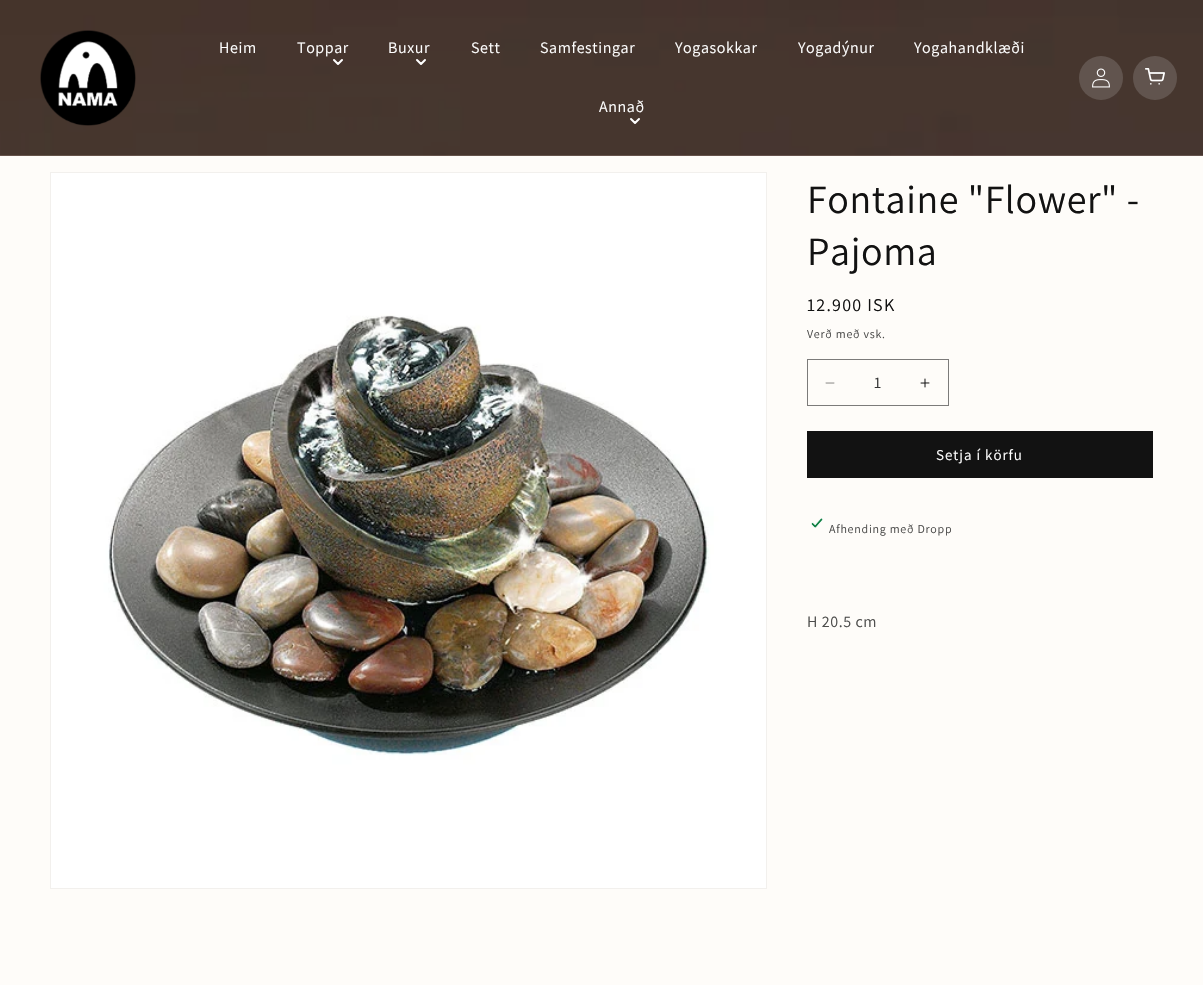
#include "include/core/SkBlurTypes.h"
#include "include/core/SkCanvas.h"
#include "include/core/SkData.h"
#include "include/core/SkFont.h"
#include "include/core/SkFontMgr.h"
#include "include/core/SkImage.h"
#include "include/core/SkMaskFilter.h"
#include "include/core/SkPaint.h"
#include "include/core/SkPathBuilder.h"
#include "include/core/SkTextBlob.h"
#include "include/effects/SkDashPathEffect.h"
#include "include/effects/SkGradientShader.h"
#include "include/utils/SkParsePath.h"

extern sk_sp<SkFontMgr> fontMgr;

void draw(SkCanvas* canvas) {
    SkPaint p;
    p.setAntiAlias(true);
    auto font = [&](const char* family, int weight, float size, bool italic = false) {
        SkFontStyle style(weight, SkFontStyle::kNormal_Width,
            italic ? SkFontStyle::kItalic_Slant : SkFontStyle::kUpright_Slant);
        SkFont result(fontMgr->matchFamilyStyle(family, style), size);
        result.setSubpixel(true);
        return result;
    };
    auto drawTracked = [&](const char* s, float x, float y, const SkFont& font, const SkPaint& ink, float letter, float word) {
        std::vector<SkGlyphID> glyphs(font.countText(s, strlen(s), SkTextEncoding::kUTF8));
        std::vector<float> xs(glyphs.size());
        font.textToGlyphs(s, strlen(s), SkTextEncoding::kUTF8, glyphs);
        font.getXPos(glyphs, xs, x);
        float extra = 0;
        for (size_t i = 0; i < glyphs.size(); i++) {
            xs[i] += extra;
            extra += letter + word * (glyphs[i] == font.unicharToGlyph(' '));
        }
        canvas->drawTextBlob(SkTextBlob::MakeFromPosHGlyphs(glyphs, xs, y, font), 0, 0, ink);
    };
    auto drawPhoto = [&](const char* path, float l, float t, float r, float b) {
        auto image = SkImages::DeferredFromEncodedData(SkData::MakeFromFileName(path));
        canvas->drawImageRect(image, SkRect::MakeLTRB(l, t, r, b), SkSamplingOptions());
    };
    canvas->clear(0xFFFEFCF9);
    drawPhoto("media/1.png", 0, 0, 1203, 156);
    p.setColor(0x14FFFFFF);
    canvas->drawRect(SkRect::MakeLTRB(0, 155, 1203, 156), p);
    drawPhoto("media/2.png", 40, 30, 136, 126);
    auto font1 = font("Assistant", 400, 16);
    p.setColor(0xFFFFFFFF);
    drawTracked("Heim", 219, 53, font1, p, 0.6f, 0);
    drawTracked("Toppar", 297, 53, font1, p, 0.6f, 0);
    p.setStyle(SkPaint::kStroke_Style);
    p.setStrokeWidth(2);
    p.setStrokeCap(SkPaint::kRound_Cap);
    p.setStrokeJoin(SkPaint::kRound_Join);
    canvas->drawPath(SkPathBuilder().moveTo(334, 60).lineTo(338, 64).lineTo(342, 60).detach(), p);
    p.setStyle(SkPaint::kFill_Style);
    drawTracked("Buxur", 388, 53, font1, p, 0.6f, 0);
    p.setStyle(SkPaint::kStroke_Style);
    canvas->drawPath(SkPathBuilder().moveTo(417, 60).lineTo(421, 64).lineTo(425, 60).detach(), p);
    p.setStyle(SkPaint::kFill_Style);
    {
        const struct { const char* s; float x, y; } items[] = {
            {"Sett", 471, 53},
            {"Samfestingar", 540, 53},
            {"Yogasokkar", 675, 53},
            {"Yogadýnur", 798, 53},
            {"Yogahandklæði", 914, 53},
            {"Annað", 599, 112},
        };
        for (auto [s, x, y] : items) {
            drawTracked(s, x, y, font1, p, 0.6f, 0);
        }
    }
    p.setStyle(SkPaint::kStroke_Style);
    canvas->drawPath(SkPathBuilder().moveTo(631, 119).lineTo(635, 123).lineTo(639, 119).detach(), p);
    p.setStyle(SkPaint::kFill_Style);
    p.setColor(0xFF61544E);
    canvas->drawCircle(1101, 78, 22, p);
    drawPhoto("media/3.png", 1092, 68, 1110, 88);
    canvas->drawCircle(1155, 78, 22, p);
    drawPhoto("media/4.png", 1145, 68, 1165, 85);
    p.setStyle(SkPaint::kStroke_Style);
    p.setStrokeWidth(1);
    p.setStrokeCap(SkPaint::kButt_Cap);
    p.setStrokeJoin(SkPaint::kMiter_Join);
    p.setColor(0xFFF2F0ED);
    canvas->drawRect(SkRect::MakeLTRB(50.5f, 172.5f, 766.5f, 888.5f), p);
    drawPhoto("media/5.png", 51, 173, 766, 888);
    auto font2 = font("Assistant", 400, 40);
    p.setStyle(SkPaint::kFill_Style);
    p.setColor(0xFF121212);
    drawTracked("Fontaine \"Flower\" -", 807, 213, font2, p, 0.6f, 0);
    drawTracked("Pajoma", 807, 265, font2, p, 0.6f, 0);
    auto font3 = font("Assistant", 400, 18);
    drawTracked("12.900 ISK", 807, 311, font3, p, 1.25f, 0);
    auto font4 = font("Assistant", 400, 12);
    p.setColor(0xFF4D4D4C);
    drawTracked("Verð með vsk.", 807, 338, font4, p, 0.75f, 0);
    drawPhoto("media/6.png", 825, 382, 835, 384);
    drawPhoto("media/7.png", 920, 378, 930, 388);
    p.setStyle(SkPaint::kStroke_Style);
    p.setColor(0xFF7C7B7A);
    canvas->drawRect(SkRect::MakeLTRB(807.5f, 359.5f, 948.5f, 405.5f), p);
    p.setStyle(SkPaint::kFill_Style);
    p.setColor(0xFF353535);
    canvas->drawString("1", 874, 388, font1, p);
    p.setColor(0xFF121212);
    canvas->drawRect(SkRect::MakeLTRB(807, 431, 1153, 478), p);
    auto font5 = font("Assistant", 400, 15);
    p.setColor(0xFFFFFFFF);
    drawTracked("Setja í körfu", 936, 460, font5, p, 1, 0);
    drawPhoto("media/8.png", 811, 518, 823, 528);
    p.setColor(0xFF4D4D4C);
    drawTracked("Afhending með Dropp", 829, 533, font4, p, 0.75f, 0);
    drawTracked("H 20.5 cm", 807, 627, font1, p, 0.6f, 0);
}
